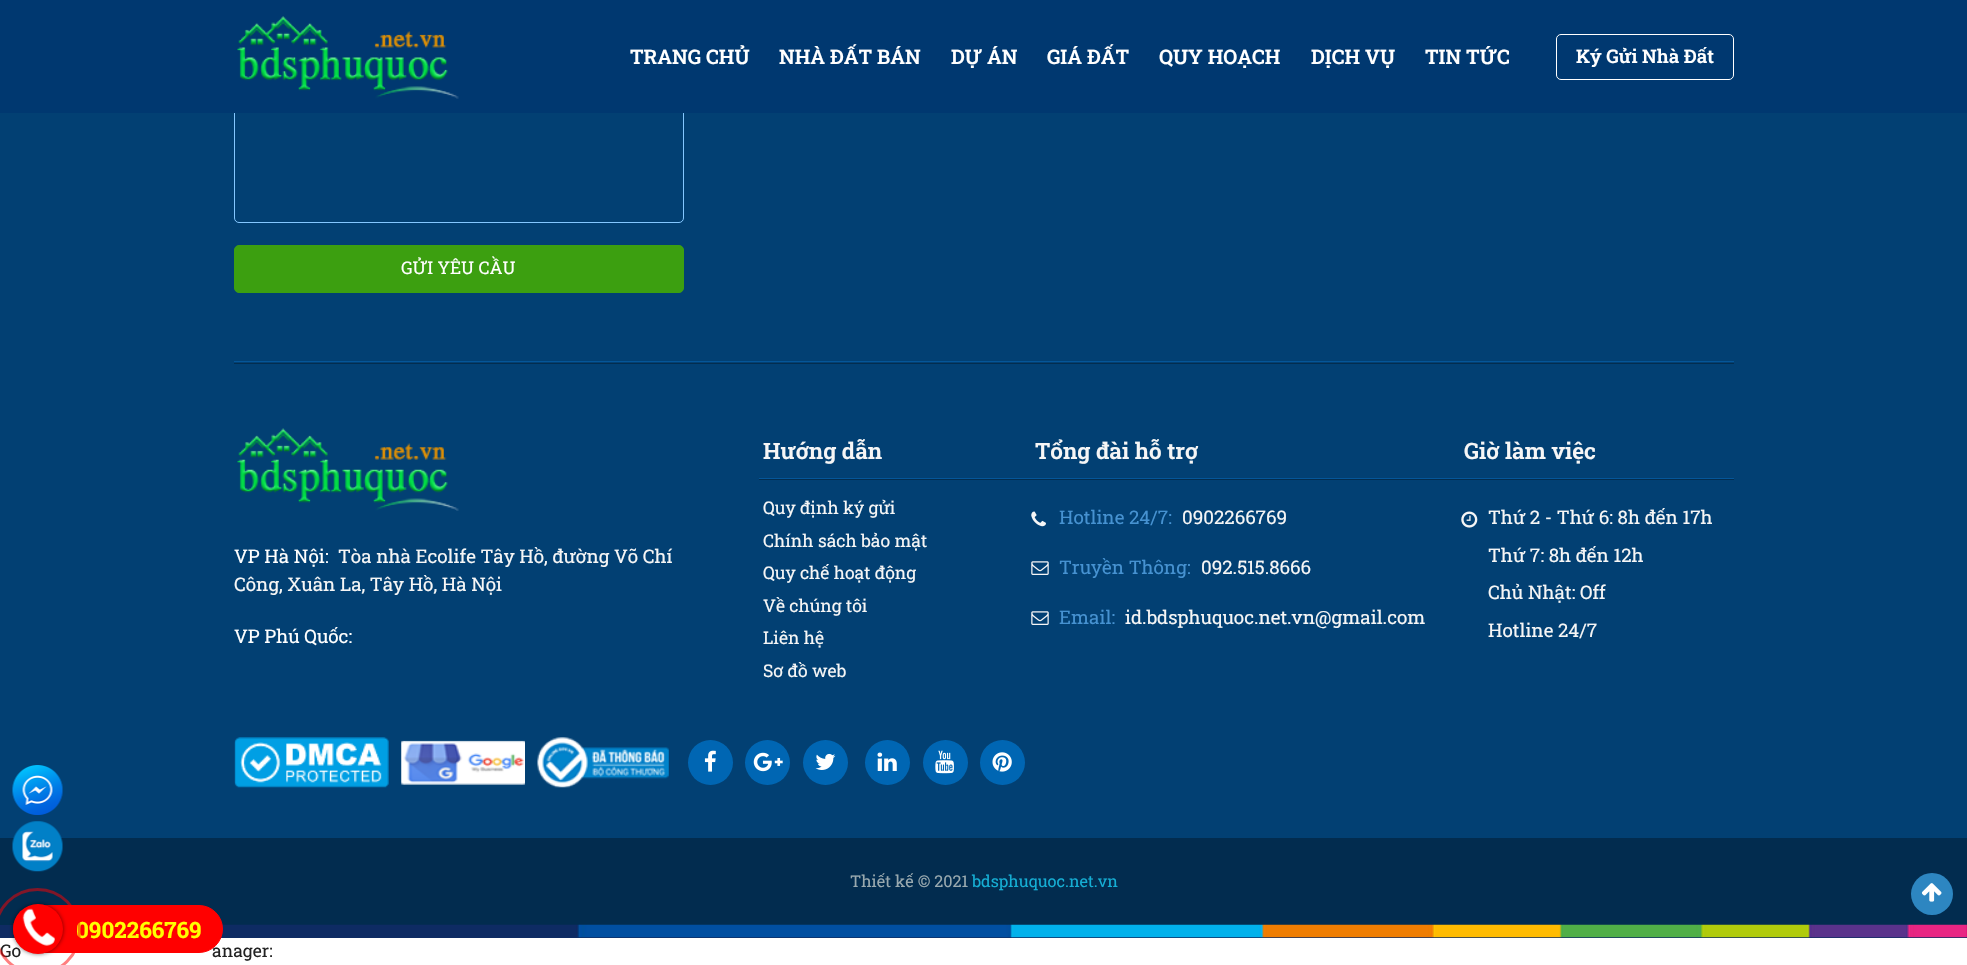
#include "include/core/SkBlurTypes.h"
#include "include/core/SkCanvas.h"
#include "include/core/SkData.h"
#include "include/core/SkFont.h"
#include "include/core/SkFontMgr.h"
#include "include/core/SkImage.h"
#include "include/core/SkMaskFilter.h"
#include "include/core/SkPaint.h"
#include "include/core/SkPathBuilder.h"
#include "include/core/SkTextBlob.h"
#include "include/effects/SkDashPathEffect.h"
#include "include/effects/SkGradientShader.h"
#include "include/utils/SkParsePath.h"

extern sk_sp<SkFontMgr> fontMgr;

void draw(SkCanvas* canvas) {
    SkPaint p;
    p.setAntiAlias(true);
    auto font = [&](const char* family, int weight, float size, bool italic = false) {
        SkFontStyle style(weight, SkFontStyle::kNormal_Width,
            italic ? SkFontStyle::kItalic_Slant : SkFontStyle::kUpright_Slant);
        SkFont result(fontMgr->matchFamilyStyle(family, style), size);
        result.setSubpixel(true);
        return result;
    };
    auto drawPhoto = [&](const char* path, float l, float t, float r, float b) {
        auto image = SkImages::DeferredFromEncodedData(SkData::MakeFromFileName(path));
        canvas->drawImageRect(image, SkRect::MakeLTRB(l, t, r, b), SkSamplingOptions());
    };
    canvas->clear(0xFFFFFFFF);
    p.setColor(0xFF024073);
    canvas->drawRect(SkRect::MakeLTRB(0, 113, 1967, 838), p);
    p.setStyle(SkPaint::kStroke_Style);
    p.setStrokeWidth(1);
    p.setColor(0xFF84C7FF);
    canvas->drawRoundRect(SkRect::MakeLTRB(234.5f, -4.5f, 683.5f, 222.5f), 4.5f, 4.5f, p);
    p.setStyle(SkPaint::kFill_Style);
    p.setColor(0xFF003870);
    canvas->drawRect(SkRect::MakeLTRB(0, 0, 1967, 113), p);
    drawPhoto("media/1.png", 237, 16, 459, 99);
    auto font1 = font("Roboto Slab", 600, 20);
    p.setColor(0xFFFFFFFF);
    {
        const struct { const char* s; float x, y; } items[] = {
            {"TRANG CHỦ", 630, 64},
            {"NHÀ ĐẤT BÁN", 779, 64},
            {"DỰ ÁN", 951, 64},
            {"GIÁ ĐẤT", 1047, 64},
            {"QUY HOẠCH", 1159, 64},
            {"DỊCH VỤ", 1311, 64},
            {"TIN TỨC", 1425, 64},
        };
        for (auto [s, x, y] : items) {
            canvas->drawString(s, x, y, font1, p);
        }
    }
    p.setStyle(SkPaint::kStroke_Style);
    canvas->drawRoundRect(SkRect::MakeLTRB(1556.5f, 34.5f, 1733.5f, 79.5f), 4.5f, 4.5f, p);
    auto font2 = font("Roboto Slab", 600, 18.75f);
    p.setStyle(SkPaint::kFill_Style);
    canvas->drawString("Ký Gửi Nhà Đất", 1576, 63, font2, p);
    p.setColor(0xFF055699);
    canvas->drawRect(SkRect::MakeLTRB(234, 361, 1734, 362), p);
    p.setColor(0xFF3C9F10);
    canvas->drawRoundRect(SkRect::MakeLTRB(234.5f, 245.5f, 683.5f, 292.5f), 4.5f, 4.5f, p);
    p.setStyle(SkPaint::kStroke_Style);
    canvas->drawRoundRect(SkRect::MakeLTRB(234.5f, 245.5f, 683.5f, 292.5f), 4.5f, 4.5f, p);
    auto font3 = font("Roboto Slab", 400, 17.5f);
    p.setStyle(SkPaint::kFill_Style);
    p.setColor(0xFFFFFFFF);
    canvas->drawString("GỬI YÊU CẦU", 401, 274, font3, p);
    p.setColor(0xFF032D4F);
    canvas->drawRect(SkRect::MakeLTRB(234, 363, 1734, 364), p);
    drawPhoto("media/2.png", 237, 428, 459, 511);
    auto font4 = font("Roboto Slab", 400, 18.75f);
    p.setColor(0xFFFFFFFF);
    canvas->drawString("VP Hà Nội:", 234, 563, font4, p);
    p.setColor(0xFFF6F6F6);
    canvas->drawString("Tòa nhà Ecolife Tây Hồ, đường Võ Chí", 338, 563, font4, p);
    canvas->drawString("Công, Xuân La, Tây Hồ, Hà Nội", 234, 591, font4, p);
    p.setColor(0xFFFFFFFF);
    canvas->drawString("VP Phú Quốc:", 234, 643, font4, p);
    p.setColor(0xFF032D4F);
    canvas->drawRect(SkRect::MakeLTRB(759, 479, 1734, 480), p);
    auto font5 = font("Roboto Slab", 600, 22.5f);
    p.setColor(0xFFF6F6F6);
    canvas->drawString("Hướng dẫn", 763, 459, font5, p);
    p.setColor(0xFF055699);
    canvas->drawRect(SkRect::MakeLTRB(759, 478, 1734, 479), p);
    p.setColor(0xFFF6F6F6);
    {
        const struct { const char* s; float x, y; } items[] = {
            {"Quy định ký gửi", 763, 514},
            {"Chính sách bảo mật", 763, 547},
            {"Quy chế hoạt động", 763, 579},
            {"Về chúng tôi", 763, 612},
            {"Liên hệ", 763, 644},
            {"Sơ đồ web", 763, 677},
        };
        for (auto [s, x, y] : items) {
            canvas->drawString(s, x, y, font3, p);
        }
    }
    canvas->drawString("Tổng đài hỗ trợ", 1035, 459, font5, p);
    drawPhoto("media/3.png", 1031, 511, 1046, 527);
    p.setColor(0xFF4692D1);
    canvas->drawString("Hotline 24/7:", 1059, 524, font4, p);
    p.setColor(0xFFF6F6F6);
    canvas->drawString("0902266769", 1182, 524, font4, p);
    drawPhoto("media/4.png", 1031, 561, 1049, 575);
    p.setColor(0xFF4692D1);
    canvas->drawString("Truyền Thông:", 1059, 574, font4, p);
    p.setColor(0xFFF6F6F6);
    canvas->drawString("092.515.8666", 1201, 574, font4, p);
    drawPhoto("media/4.png", 1031, 611, 1049, 625);
    p.setColor(0xFF4692D1);
    canvas->drawString("Email:", 1059, 624, font4, p);
    p.setColor(0xFFF6F6F6);
    canvas->drawString("id.bdsphuquoc.net.vn@gmail.com", 1125, 624, font4, p);
    canvas->drawString("Giờ làm việc", 1464, 459, font5, p);
    drawPhoto("media/5.png", 1461, 511, 1478, 528);
    {
        const struct { const char* s; float x, y; } items[] = {
            {"Thứ 2 - Thứ 6: 8h đến 17h", 1488, 524},
            {"Thứ 7: 8h đến 12h", 1488, 562},
            {"Chủ Nhật: Off", 1488, 599},
            {"Hotline 24/7", 1488, 637},
        };
        for (auto [s, x, y] : items) {
            canvas->drawString(s, x, y, font4, p);
        }
    }
    drawPhoto("media/6.png", 234, 737, 389, 788);
    drawPhoto("media/7.png", 401, 740, 525, 785);
    drawPhoto("media/8.png", 537, 737, 669, 788);
    p.setColor(0xFF0066B3);
    canvas->drawCircle(710.5f, 762.5f, 22.5f, p);
    drawPhoto("media/9.png", 704, 750, 716, 772);
    canvas->drawCircle(767.5f, 762.5f, 22.5f, p);
    drawPhoto("media/10.png", 753, 752, 783, 772);
    canvas->drawCircle(825.5f, 762.5f, 22.5f, p);
    drawPhoto("media/11.png", 815, 753, 836, 770);
    canvas->drawCircle(887.5f, 762.5f, 22.5f, p);
    drawPhoto("media/12.png", 877, 752, 897, 771);
    canvas->drawCircle(945.5f, 762.5f, 22.5f, p);
    drawPhoto("media/13.png", 935, 750, 954, 774);
    canvas->drawCircle(1002.5f, 762.5f, 22.5f, p);
    drawPhoto("media/14.png", 992, 752, 1012, 772);
    drawPhoto("media/15.png", 12, 765, 63, 815);
    p.setColor(0xFF022C4F);
    canvas->drawRect(SkRect::MakeLTRB(0, 838, 1967, 925), p);
    drawPhoto("media/16.png", 12, 821, 63, 872);
    auto font6 = font("Roboto Slab", 400, 16.25f);
    p.setColor(0xFF99A9AF);
    canvas->drawString("Thiết kế © 2021", 850, 887, font6, p);
    p.setColor(0xFF15AED4);
    canvas->drawString("bdsphuquoc.net.vn", 972, 887, font6, p);
    p.setColor(0xFF2D86C1);
    canvas->drawCircle(1932, 894, 21, p);
    drawPhoto("media/17.png", 1921, 883, 1942, 902);
    p.setColor(0xFF0E2B63);
    canvas->drawRect(SkRect::MakeLTRB(0, 925, 1967, 938), p);
    drawPhoto("media/19.png", 221, 924, 1967, 938);
    p.setColor(0xFF222222);
    canvas->drawString("Go", 0, 957, font3, p);
    canvas->drawString("anager:", 212, 957, font3, p);
    p.setColor(0xFFFF0000);
    canvas->drawRoundRect(SkRect::MakeLTRB(13.5f, 905.5f, 222.5f, 952.5f), 23.5f, 23.5f, p);
    p.setStyle(SkPaint::kStroke_Style);
    canvas->drawRoundRect(SkRect::MakeLTRB(13.5f, 905.5f, 222.5f, 952.5f), 23.5f, 23.5f, p);
    auto font7 = font("Roboto Slab", 700, 22.5f);
    p.setStyle(SkPaint::kFill_Style);
    p.setColor(0xFFFFFF00);
    canvas->drawString("0902266769", 76, 938, font7, p);
    p.setStyle(SkPaint::kStroke_Style);
    p.setStrokeWidth(3);
    p.setColor(0x80FF0000);
    canvas->drawCircle(37.5f, 931.5f, 42, p);
    p.setStyle(SkPaint::kFill_Style);
    p.setColor(0x8C000000);
    p.setMaskFilter(SkMaskFilter::MakeBlur(kNormal_SkBlurStyle, 2));
    canvas->drawRoundRect(SkRect::MakeLTRB(13, 904, 63, 954), 25, 25, p);
    p.setMaskFilter(nullptr);
    p.setColor(0xFFFF0000);
    canvas->drawCircle(38, 929, 25, p);
    drawPhoto("media/18.png", 22, 908, 55, 946);
}
